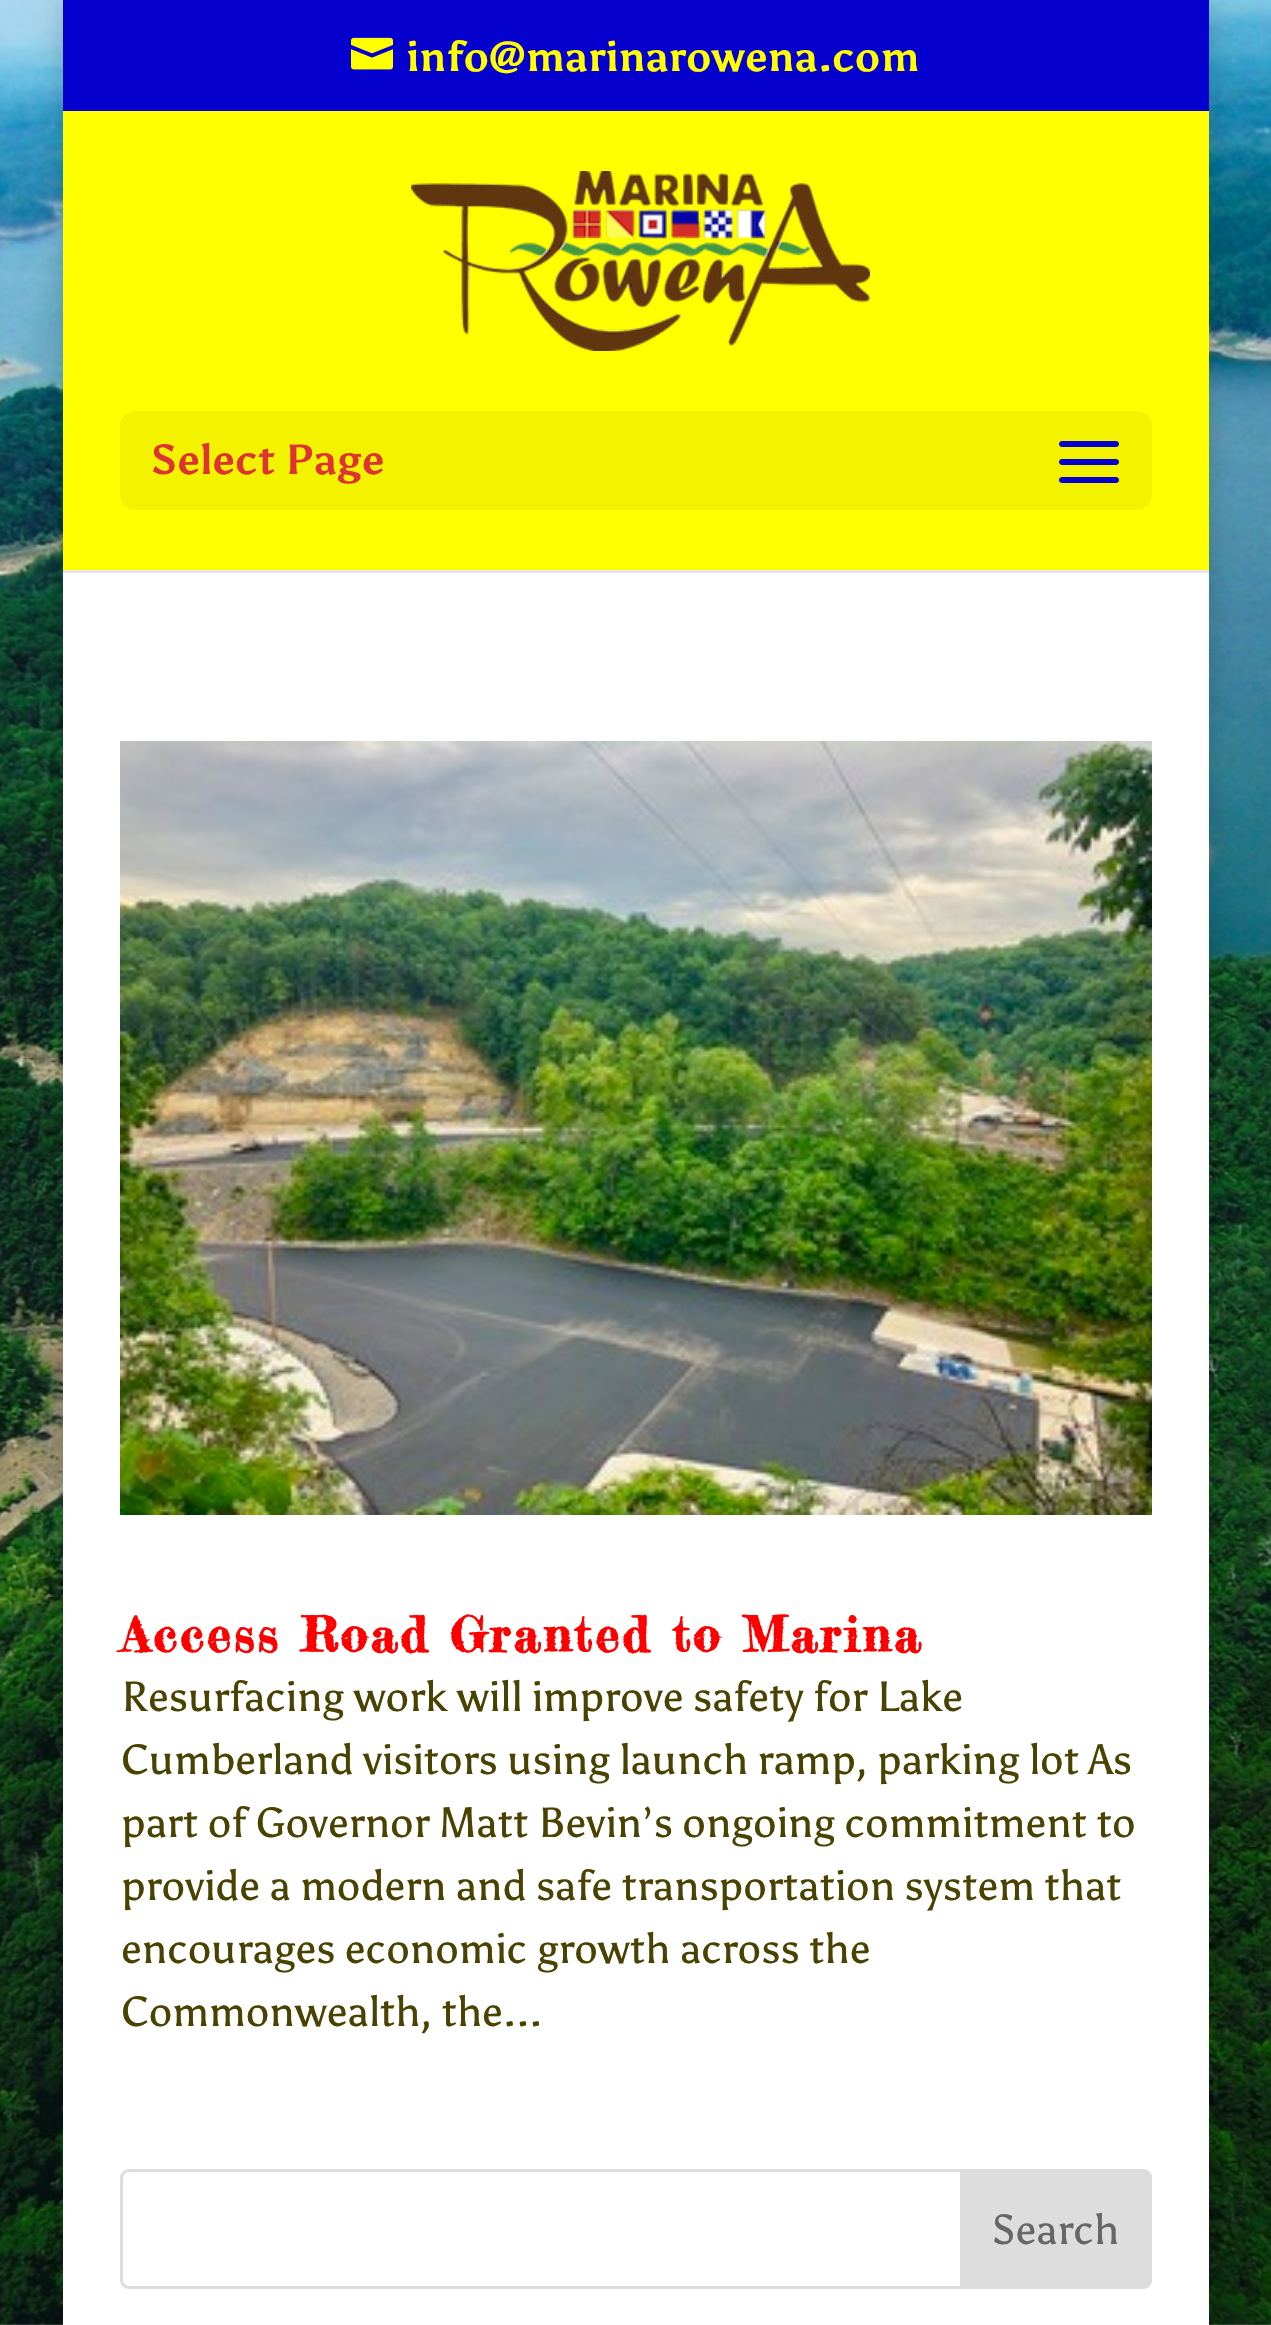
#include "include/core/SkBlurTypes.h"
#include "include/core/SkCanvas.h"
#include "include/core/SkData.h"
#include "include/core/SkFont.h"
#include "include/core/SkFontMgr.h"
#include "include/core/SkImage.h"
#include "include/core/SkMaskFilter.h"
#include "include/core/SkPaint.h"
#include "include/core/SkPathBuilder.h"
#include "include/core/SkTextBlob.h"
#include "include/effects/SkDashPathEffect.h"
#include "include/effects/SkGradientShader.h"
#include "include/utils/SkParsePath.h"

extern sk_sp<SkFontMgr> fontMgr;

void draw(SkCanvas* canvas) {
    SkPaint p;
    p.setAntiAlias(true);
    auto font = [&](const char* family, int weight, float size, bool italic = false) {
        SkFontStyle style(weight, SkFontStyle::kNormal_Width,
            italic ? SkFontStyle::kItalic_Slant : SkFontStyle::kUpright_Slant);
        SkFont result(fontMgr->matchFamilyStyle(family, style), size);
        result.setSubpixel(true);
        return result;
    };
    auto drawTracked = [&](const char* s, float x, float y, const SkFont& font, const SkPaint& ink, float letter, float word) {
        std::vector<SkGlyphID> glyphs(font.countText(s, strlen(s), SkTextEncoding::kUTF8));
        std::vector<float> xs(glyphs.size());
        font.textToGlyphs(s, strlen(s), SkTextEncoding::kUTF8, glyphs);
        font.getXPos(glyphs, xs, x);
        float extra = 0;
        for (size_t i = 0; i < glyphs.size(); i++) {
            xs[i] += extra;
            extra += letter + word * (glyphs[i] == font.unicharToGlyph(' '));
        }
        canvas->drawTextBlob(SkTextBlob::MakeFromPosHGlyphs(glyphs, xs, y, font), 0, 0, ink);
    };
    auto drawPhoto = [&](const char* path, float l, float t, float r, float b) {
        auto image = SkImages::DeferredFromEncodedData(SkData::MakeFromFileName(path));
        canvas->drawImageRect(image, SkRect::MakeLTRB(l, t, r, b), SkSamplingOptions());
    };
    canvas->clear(0xFFFFFFFF);
    drawPhoto("media/1.png", 0, 0, 1271, 2325);
    p.setColor(0x33000000);
    p.setMaskFilter(SkMaskFilter::MakeBlur(kNormal_SkBlurStyle, 15));
    canvas->drawRect(SkRect::MakeLTRB(63, 0, 1209, 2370), p);
    p.setMaskFilter(nullptr);
    p.setColor(0xFF0600CE);
    canvas->drawRect(SkRect::MakeLTRB(63, 0, 1209, 111), p);
    drawPhoto("media/2.png", 351, 37, 393, 70);
    auto font1 = font("Asul", 700, 42);
    p.setColor(0xFFFFFF00);
    canvas->drawString("info@marinarowena.com", 406, 71, font1, p);
    p.setColor(0xFFE6E6E6);
    canvas->drawRect(SkRect::MakeLTRB(63, 570, 1209, 573), p);
    p.setColor(0xFFFFFF00);
    canvas->drawRect(SkRect::MakeLTRB(63, 111, 1209, 570), p);
    drawPhoto("media/3.png", 411, 171, 870, 351);
    p.setColor(0xFFF3F300);
    canvas->drawRoundRect(SkRect::MakeLTRB(120, 411, 1152, 510), 15, 15, p);
    p.setColor(0xFFDD3333);
    canvas->drawString("Select Page", 151, 474, font1, p);
    drawPhoto("media/4.png", 1059, 441, 1119, 483);
    p.setColor(0xFFFFFFFF);
    canvas->drawRect(SkRect::MakeLTRB(63, 573, 1209, 2325), p);
    drawPhoto("media/5.png", 120, 741, 1152, 1515);
    auto font2 = font("Fredericka the Great", 700, 48);
    p.setColor(0xFFFF0000);
    drawTracked("Access Road Granted to Marina", 121, 1652, font2, p, 3, 0);
    auto font3 = font("Asul", 400, 42);
    p.setColor(0xFF494200);
    {
        const struct { const char* s; float x, y; } items[] = {
            {"Resurfacing work will improve safety for Lake", 121, 1711},
            {"Cumberland visitors using launch ramp, parking lot As", 121, 1774},
            {"part of Governor Matt Bevin’s ongoing commitment to", 121, 1837},
            {"provide a modern and safe transportation system that", 121, 1900},
            {"encourages economic growth across the", 121, 1963},
            {"Commonwealth, the...", 121, 2026},
        };
        for (auto [s, x, y] : items) {
            canvas->drawString(s, x, y, font3, p);
        }
    }
    p.setStyle(SkPaint::kStroke_Style);
    p.setStrokeWidth(3);
    p.setColor(0xFFDDDDDD);
    canvas->drawRoundRect(SkRect::MakeLTRB(121.5f, 2170.5f, 1150.5f, 2287.5f), 7.5f, 7.5f, p);
    p.setStyle(SkPaint::kFill_Style);
    canvas->drawPath(SkPathBuilder().moveTo(961.5f, 2170.5f).lineTo(1143, 2170.5f).cubicTo(1147, 2170.5f, 1150.5f, 2174, 1150.5f, 2178).lineTo(1150.5f, 2280).cubicTo(1150.5f, 2284, 1147, 2287.5f, 1143, 2287.5f).lineTo(961.5f, 2287.5f).close().detach(), p);
    p.setStyle(SkPaint::kStroke_Style);
    canvas->drawPath(SkPathBuilder().moveTo(961.5f, 2170.5f).lineTo(1143, 2170.5f).cubicTo(1147, 2170.5f, 1150.5f, 2174, 1150.5f, 2178).lineTo(1150.5f, 2280).cubicTo(1150.5f, 2284, 1147, 2287.5f, 1143, 2287.5f).lineTo(961.5f, 2287.5f).close().detach(), p);
    p.setStyle(SkPaint::kFill_Style);
    p.setColor(0xFF666666);
    canvas->drawString("Search", 992, 2244, font3, p);
}
